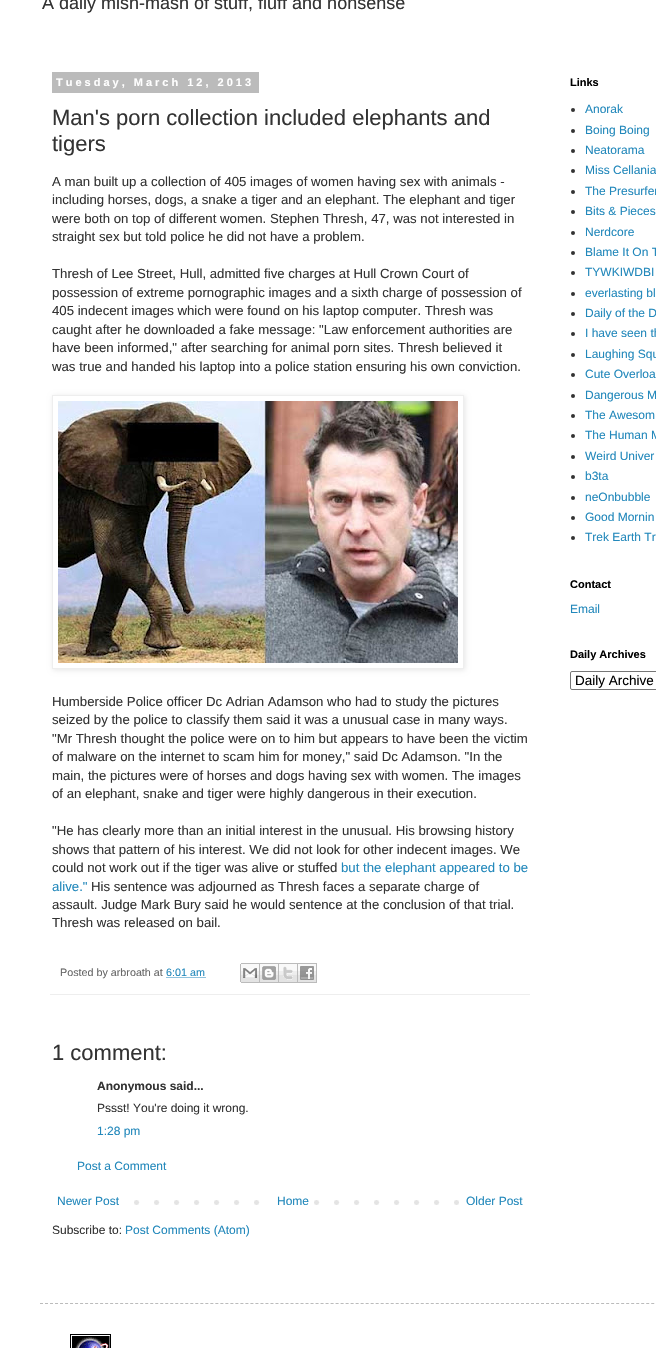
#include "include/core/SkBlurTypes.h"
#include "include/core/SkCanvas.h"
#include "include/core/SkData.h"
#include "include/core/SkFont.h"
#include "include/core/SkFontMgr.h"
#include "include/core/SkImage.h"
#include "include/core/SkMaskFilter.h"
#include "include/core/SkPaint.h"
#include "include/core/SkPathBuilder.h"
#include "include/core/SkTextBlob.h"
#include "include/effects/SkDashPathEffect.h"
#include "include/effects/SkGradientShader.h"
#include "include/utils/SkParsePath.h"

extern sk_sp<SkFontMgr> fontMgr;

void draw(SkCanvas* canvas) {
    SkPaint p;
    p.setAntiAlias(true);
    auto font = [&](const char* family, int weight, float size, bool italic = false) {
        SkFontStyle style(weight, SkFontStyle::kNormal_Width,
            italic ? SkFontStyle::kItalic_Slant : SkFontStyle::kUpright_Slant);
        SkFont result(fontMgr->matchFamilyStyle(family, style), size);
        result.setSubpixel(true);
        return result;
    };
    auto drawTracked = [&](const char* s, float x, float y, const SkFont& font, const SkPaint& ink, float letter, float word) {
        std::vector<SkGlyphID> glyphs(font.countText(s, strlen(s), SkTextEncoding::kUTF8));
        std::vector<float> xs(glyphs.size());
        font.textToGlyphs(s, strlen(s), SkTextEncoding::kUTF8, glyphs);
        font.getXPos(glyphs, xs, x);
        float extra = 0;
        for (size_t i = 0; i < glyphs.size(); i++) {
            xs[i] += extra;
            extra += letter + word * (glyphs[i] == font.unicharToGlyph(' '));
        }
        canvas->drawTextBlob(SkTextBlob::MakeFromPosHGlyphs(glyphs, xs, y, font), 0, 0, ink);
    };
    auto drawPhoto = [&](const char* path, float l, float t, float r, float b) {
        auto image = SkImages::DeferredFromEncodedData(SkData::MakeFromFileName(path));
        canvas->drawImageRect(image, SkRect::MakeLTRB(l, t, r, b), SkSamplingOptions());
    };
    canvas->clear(0xFFFFFFFF);
    auto font1 = font("Liberation Sans", 400, 18);
    p.setColor(0xFF333333);
    canvas->drawString("A daily mish-mash of stuff, fluff and nonsense", 42, 9, font1, p);
    p.setColor(0xFFBBBBBB);
    canvas->drawRect(SkRect::MakeLTRB(52, 72, 259, 93), p);
    auto font2 = font("Liberation Sans", 700, 11);
    p.setColor(0xFFFFFFFF);
    drawTracked("Tuesday, March 12, 2013", 56, 86, font2, p, 3, 0);
    auto font3 = font("Liberation Sans", 400, 22);
    p.setColor(0xFF333333);
    canvas->drawString("Man's porn collection included elephants and", 52, 125, font3, p);
    canvas->drawString("tigers", 52, 151, font3, p);
    auto font4 = font("Liberation Sans", 400, 13.2f);
    {
        const struct { const char* s; float x, y; } items[] = {
            {"A man built up a collection of 405 images of women having sex with animals -", 52, 186},
            {"including horses, dogs, a snake a tiger and an elephant. The elephant and tiger", 52, 204},
            {"were both on top of different women. Stephen Thresh, 47, was not interested in", 52, 223},
            {"straight sex but told police he did not have a problem.", 52, 241},
            {"Thresh of Lee Street, Hull, admitted five charges at Hull Crown Court of", 52, 278},
            {"possession of extreme pornographic images and a sixth charge of possession of", 52, 297},
            {"405 indecent images which were found on his laptop computer. Thresh was", 52, 315},
            {"caught after he downloaded a fake message: \"Law enforcement authorities are", 52, 334},
            {"have been informed,\" after searching for animal porn sites. Thresh believed it", 52, 352},
            {"was true and handed his laptop into a police station ensuring his own conviction.", 52, 371},
        };
        for (auto [s, x, y] : items) {
            canvas->drawString(s, x, y, font4, p);
        }
    }
    canvas->save();
    canvas->clipPath(SkPathBuilder(SkPathFillType::kEvenOdd).moveTo(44, 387).lineTo(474, 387).lineTo(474, 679).lineTo(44, 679).close().moveTo(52, 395).lineTo(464, 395).lineTo(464, 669).lineTo(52, 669).close().detach(), true);
    p.setColor(0x1A000000);
    p.setMaskFilter(SkMaskFilter::MakeBlur(kNormal_SkBlurStyle, 2.5f));
    canvas->drawRect(SkRect::MakeLTRB(53, 396, 465, 670), p);
    p.setMaskFilter(nullptr);
    canvas->restore();
    p.setStyle(SkPaint::kStroke_Style);
    p.setStrokeWidth(1);
    p.setColor(0xFFEEEEEE);
    canvas->drawRect(SkRect::MakeLTRB(52.5f, 395.5f, 463.5f, 668.5f), p);
    drawPhoto("media/1.png", 58, 401, 458, 663);
    p.setStyle(SkPaint::kFill_Style);
    p.setColor(0xFF333333);
    {
        const struct { const char* s; float x, y; } items[] = {
            {"Humberside Police officer Dc Adrian Adamson who had to study the pictures", 52, 706},
            {"seized by the police to classify them said it was a unusual case in many ways.", 52, 724},
            {"\"Mr Thresh thought the police were on to him but appears to have been the victim", 52, 743},
            {"of malware on the internet to scam him for money,\" said Dc Adamson. \"In the", 52, 761},
            {"main, the pictures were of horses and dogs having sex with women. The images", 52, 780},
            {"of an elephant, snake and tiger were highly dangerous in their execution.", 52, 798},
            {"\"He has clearly more than an initial interest in the unusual. His browsing history", 52, 835},
            {"shows that pattern of his interest. We did not look for other indecent images. We", 52, 854},
            {"could not work out if the tiger was alive or stuffed", 52, 872},
        };
        for (auto [s, x, y] : items) {
            canvas->drawString(s, x, y, font4, p);
        }
    }
    p.setColor(0xFF2288BB);
    canvas->drawString("but the elephant appeared to be", 341, 872, font4, p);
    canvas->drawString("alive.\"", 52, 891, font4, p);
    p.setColor(0xFF333333);
    {
        const struct { const char* s; float x, y; } items[] = {
            {"His sentence was adjourned as Thresh faces a separate charge of", 91, 891},
            {"assault. Judge Mark Bury said he would sentence at the conclusion of that trial.", 52, 909},
            {"Thresh was released on bail.", 52, 927},
        };
        for (auto [s, x, y] : items) {
            canvas->drawString(s, x, y, font4, p);
        }
    }
    p.setColor(0xFFEEEEEE);
    canvas->drawRect(SkRect::MakeLTRB(50, 994, 530, 995), p);
    auto font5 = font("Liberation Sans", 400, 10.75f);
    p.setColor(0xFF666666);
    canvas->drawString("Posted by arbroath at", 60, 976, font5, p);
    p.setColor(0xFF2288BB);
    canvas->drawString("6:01 am", 166, 976, font5, p);
    p.setStyle(SkPaint::kStroke_Style);
    p.setPathEffect(SkDashPathEffect::Make({{1, 1}}, 0));
    canvas->drawPath(SkPathBuilder().moveTo(166.5f, 977.5f).lineTo(205.5f, 977.5f).detach(), p);
    p.setPathEffect(nullptr);
    drawPhoto("media/2.png", 240, 963, 260, 983);
    drawPhoto("media/3.png", 260, 963, 279, 983);
    drawPhoto("media/4.png", 279, 963, 298, 983);
    drawPhoto("media/5.png", 298, 963, 317, 983);
    p.setStyle(SkPaint::kFill_Style);
    p.setColor(0xFF333333);
    canvas->drawString("1 comment:", 52, 1060, font3, p);
    auto font6 = font("Liberation Sans", 700, 12);
    canvas->drawString("Anonymous said...", 97, 1090, font6, p);
    auto font7 = font("Liberation Sans", 400, 12);
    canvas->drawString("Pssst! You're doing it wrong.", 97, 1112, font7, p);
    p.setColor(0xFF2288BB);
    canvas->drawString("1:28 pm", 97, 1135, font7, p);
    canvas->drawString("Post a Comment", 77, 1170, font7, p);
    drawPhoto("media/6.png", 134, 1200, 459, 1205);
    canvas->drawString("Newer Post", 57, 1205, font7, p);
    p.setColor(0xFFFFFFFF);
    canvas->drawRect(SkRect::MakeLTRB(274, 1200, 300, 1205), p);
    p.setColor(0xFF2288BB);
    canvas->drawString("Home", 277, 1205, font7, p);
    canvas->drawString("Older Post", 466, 1205, font7, p);
    p.setColor(0xFF333333);
    canvas->drawString("Subscribe to:", 52, 1234, font7, p);
    p.setColor(0xFF2288BB);
    canvas->drawString("Post Comments (Atom)", 125, 1234, font7, p);
    p.setColor(0xFF000000);
    canvas->drawString("Links", 570, 86, font2, p);
    p.setColor(0xFF333333);
    canvas->drawCircle(573, 110, 2, p);
    p.setColor(0xFF2288BB);
    canvas->drawString("Anorak", 585, 113, font7, p);
    p.setColor(0xFF333333);
    canvas->drawCircle(573, 131, 2, p);
    p.setColor(0xFF2288BB);
    canvas->drawString("Boing Boing", 585, 134, font7, p);
    p.setColor(0xFF333333);
    canvas->drawCircle(573, 151, 2, p);
    p.setColor(0xFF2288BB);
    canvas->drawString("Neatorama", 585, 154, font7, p);
    p.setColor(0xFF333333);
    canvas->drawCircle(573, 171, 2, p);
    p.setColor(0xFF2288BB);
    canvas->drawString("Miss Cellania", 585, 174, font7, p);
    p.setColor(0xFF333333);
    canvas->drawCircle(573, 192, 2, p);
    p.setColor(0xFF2288BB);
    canvas->drawString("The Presurfer", 585, 195, font7, p);
    p.setColor(0xFF333333);
    canvas->drawCircle(573, 212, 2, p);
    p.setColor(0xFF2288BB);
    canvas->drawString("Bits & Pieces", 585, 215, font7, p);
    p.setColor(0xFF333333);
    canvas->drawCircle(573, 233, 2, p);
    p.setColor(0xFF2288BB);
    canvas->drawString("Nerdcore", 585, 236, font7, p);
    p.setColor(0xFF333333);
    canvas->drawCircle(573, 253, 2, p);
    p.setColor(0xFF2288BB);
    canvas->drawString("Blame It On T", 585, 256, font7, p);
    p.setColor(0xFF333333);
    canvas->drawCircle(573, 273, 2, p);
    p.setColor(0xFF2288BB);
    canvas->drawString("TYWKIWDBI", 585, 276, font7, p);
    p.setColor(0xFF333333);
    canvas->drawCircle(573, 294, 2, p);
    p.setColor(0xFF2288BB);
    canvas->drawString("everlasting bl", 585, 297, font7, p);
    p.setColor(0xFF333333);
    canvas->drawCircle(573, 314, 2, p);
    p.setColor(0xFF2288BB);
    canvas->drawString("Daily of the D", 585, 317, font7, p);
    p.setColor(0xFF333333);
    canvas->drawCircle(573, 334, 2, p);
    p.setColor(0xFF2288BB);
    canvas->drawString("I have seen th", 585, 337, font7, p);
    p.setColor(0xFF333333);
    canvas->drawCircle(573, 355, 2, p);
    p.setColor(0xFF2288BB);
    canvas->drawString("Laughing Squ", 585, 358, font7, p);
    p.setColor(0xFF333333);
    canvas->drawCircle(573, 375, 2, p);
    p.setColor(0xFF2288BB);
    canvas->drawString("Cute Overloa", 585, 378, font7, p);
    p.setColor(0xFF333333);
    canvas->drawCircle(573, 396, 2, p);
    p.setColor(0xFF2288BB);
    canvas->drawString("Dangerous M", 585, 399, font7, p);
    p.setColor(0xFF333333);
    canvas->drawCircle(573, 416, 2, p);
    p.setColor(0xFF2288BB);
    canvas->drawString("The Awesom", 585, 419, font7, p);
    p.setColor(0xFF333333);
    canvas->drawCircle(573, 436, 2, p);
    p.setColor(0xFF2288BB);
    canvas->drawString("The Human M", 585, 439, font7, p);
    p.setColor(0xFF333333);
    canvas->drawCircle(573, 457, 2, p);
    p.setColor(0xFF2288BB);
    canvas->drawString("Weird Univer", 585, 460, font7, p);
    p.setColor(0xFF333333);
    canvas->drawCircle(573, 477, 2, p);
    p.setColor(0xFF2288BB);
    canvas->drawString("b3ta", 585, 480, font7, p);
    p.setColor(0xFF333333);
    canvas->drawCircle(573, 498, 2, p);
    p.setColor(0xFF2288BB);
    canvas->drawString("neOnbubble", 585, 501, font7, p);
    p.setColor(0xFF333333);
    canvas->drawCircle(573, 518, 2, p);
    p.setColor(0xFF2288BB);
    canvas->drawString("Good Mornin", 585, 521, font7, p);
    p.setColor(0xFF333333);
    canvas->drawCircle(573, 538, 2, p);
    p.setColor(0xFF2288BB);
    canvas->drawString("Trek Earth Tr", 585, 541, font7, p);
    p.setColor(0xFF000000);
    canvas->drawString("Contact", 570, 588, font2, p);
    p.setColor(0xFF2288BB);
    canvas->drawString("Email", 570, 613, font7, p);
    p.setColor(0xFF000000);
    canvas->drawString("Daily Archives", 570, 658, font2, p);
    p.setStyle(SkPaint::kStroke_Style);
    p.setColor(0xFF767676);
    canvas->drawRoundRect(SkRect::MakeLTRB(570.5f, 671.5f, 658.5f, 689.5f), 1.5f, 1.5f, p);
    auto font8 = font("Liberation Sans", 400, 13.5f);
    p.setStyle(SkPaint::kFill_Style);
    p.setColor(0xFF000000);
    canvas->drawString("Daily Archive", 575, 685, font8, p);
    p.setStyle(SkPaint::kStroke_Style);
    p.setColor(0xFFBBBBBB);
    p.setPathEffect(SkDashPathEffect::Make({{3, 2.01f}}, 0));
    canvas->drawPath(SkPathBuilder().moveTo(40, 1303.5f).lineTo(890, 1303.5f).detach(), p);
    p.setPathEffect(nullptr);
    drawPhoto("media/7.png", 70, 1334, 111, 1348);
}
